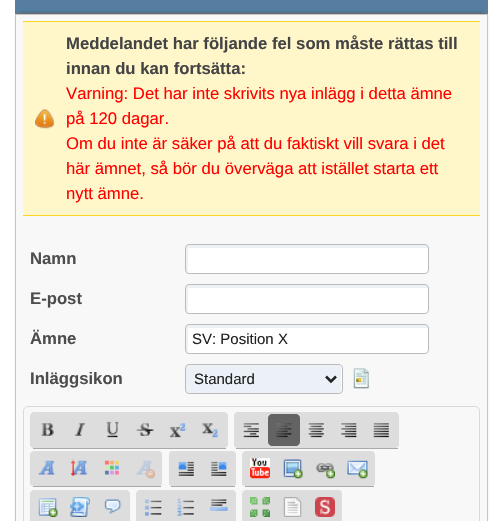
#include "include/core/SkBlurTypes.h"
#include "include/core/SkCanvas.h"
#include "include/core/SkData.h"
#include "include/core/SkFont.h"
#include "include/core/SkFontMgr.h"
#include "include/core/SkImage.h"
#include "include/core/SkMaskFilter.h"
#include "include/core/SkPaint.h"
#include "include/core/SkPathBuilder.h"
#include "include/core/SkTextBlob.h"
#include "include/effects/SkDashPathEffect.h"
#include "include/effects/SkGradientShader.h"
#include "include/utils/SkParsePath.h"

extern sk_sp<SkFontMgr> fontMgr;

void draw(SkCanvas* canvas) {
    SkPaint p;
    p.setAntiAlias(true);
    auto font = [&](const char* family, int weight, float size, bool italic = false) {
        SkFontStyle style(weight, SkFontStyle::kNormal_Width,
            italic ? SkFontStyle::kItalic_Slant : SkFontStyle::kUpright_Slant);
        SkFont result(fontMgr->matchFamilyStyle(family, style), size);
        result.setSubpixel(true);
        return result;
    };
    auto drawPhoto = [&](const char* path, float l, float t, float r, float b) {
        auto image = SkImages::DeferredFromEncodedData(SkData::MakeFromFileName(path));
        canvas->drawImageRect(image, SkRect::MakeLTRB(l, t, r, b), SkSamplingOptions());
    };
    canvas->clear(0xFFFFFFFF);
    p.setColor(0xFF557EA0);
    canvas->drawRect(SkRect::MakeLTRB(15, 0, 488, 13), p);
    p.setColor(0xFF777777);
    canvas->drawRect(SkRect::MakeLTRB(15, 13, 488, 14), p);
    p.setColor(0x1A000000);
    p.setMaskFilter(SkMaskFilter::MakeBlur(kNormal_SkBlurStyle, 1));
    canvas->drawRoundRect(SkRect::MakeLTRB(15, 11, 488, 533), 9, 9, p);
    p.setMaskFilter(nullptr);
    p.setColor(0xFFF8F8F8);
    canvas->drawRect(SkRect::MakeLTRB(15.5f, 14.5f, 487.5f, 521.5f), p);
    p.setStyle(SkPaint::kStroke_Style);
    p.setStrokeWidth(1);
    p.setColor(0xFFC5C5C5);
    canvas->drawRect(SkRect::MakeLTRB(15.5f, 14.5f, 487.5f, 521.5f), p);
    p.setStyle(SkPaint::kFill_Style);
    {
        const struct { float l, t, r, b; SkColor color; } items[] = {
            {23, 22, 480, 215, 0xFFFFF6CA},
            {23, 21, 480, 22, 0xFFFFD324},
            {23, 215, 480, 216, 0xFFFFD324},
        };
        for (auto [l, t, r, b, color] : items) {
            p.setColor(color);
            canvas->drawRect(SkRect::MakeLTRB(l, t, r, b), p);
        }
    }
    drawPhoto("media/1.png", 35, 109, 54, 129);
    auto font1 = font("Liberation Sans", 700, 16.7f);
    p.setColor(0xFF444444);
    canvas->drawString("Meddelandet har följande fel som måste rättas till", 66, 49, font1, p);
    canvas->drawString("innan du kan fortsätta:", 66, 74, font1, p);
    auto font2 = font("Liberation Sans", 400, 16.7f);
    p.setColor(0xFFFF0000);
    {
        const struct { const char* s; float x, y; } items[] = {
            {"Varning: Det har inte skrivits nya inlägg i detta ämne", 66, 99},
            {"på 120 dagar.", 66, 124},
            {"Om du inte är säker på att du faktiskt vill svara i det", 66, 149},
            {"här ämnet, så bör du överväga att istället starta ett", 66, 174},
            {"nytt ämne.", 66, 199},
        };
        for (auto [s, x, y] : items) {
            canvas->drawString(s, x, y, font2, p);
        }
    }
    p.setColor(0xFF4D4D4D);
    canvas->drawString("Namn", 30, 264, font1, p);
    p.setColor(0xFFFFFFFF);
    canvas->drawRoundRect(SkRect::MakeLTRB(185, 244, 429, 274), 4, 4, p);
    p.setColor(0xFFECF1F8);
    canvas->drawPath(SkPathBuilder().moveTo(190, 248).lineTo(426, 248).lineTo(428, 248).cubicTo(428, 246, 427, 245, 426, 245).lineTo(188, 245).cubicTo(187, 245, 186, 246, 186, 248).lineTo(186, 270).cubicTo(186, 272, 187, 273, 188, 273).lineTo(188, 254).cubicTo(188, 252, 187, 248, 190, 248).close().detach(), p);
    p.setStyle(SkPaint::kStroke_Style);
    p.setColor(0xFFBBBBBB);
    canvas->drawRoundRect(SkRect::MakeLTRB(185.5f, 244.5f, 428.5f, 273.5f), 3.5f, 3.5f, p);
    p.setStyle(SkPaint::kFill_Style);
    p.setColor(0xFF4D4D4D);
    canvas->drawString("E-post", 30, 304, font1, p);
    p.setColor(0xFFFFFFFF);
    canvas->drawRoundRect(SkRect::MakeLTRB(185, 284, 429, 314), 4, 4, p);
    p.setColor(0xFFECF1F8);
    canvas->drawPath(SkPathBuilder().moveTo(190, 288).lineTo(426, 288).lineTo(428, 288).cubicTo(428, 286, 427, 285, 426, 285).lineTo(188, 285).cubicTo(187, 285, 186, 286, 186, 288).lineTo(186, 310).cubicTo(186, 312, 187, 313, 188, 313).lineTo(188, 294).cubicTo(188, 292, 187, 288, 190, 288).close().detach(), p);
    p.setStyle(SkPaint::kStroke_Style);
    p.setColor(0xFFBBBBBB);
    canvas->drawRoundRect(SkRect::MakeLTRB(185.5f, 284.5f, 428.5f, 313.5f), 3.5f, 3.5f, p);
    p.setStyle(SkPaint::kFill_Style);
    p.setColor(0xFF4D4D4D);
    canvas->drawString("Ämne", 30, 344, font1, p);
    p.setColor(0xFFFFFFFF);
    canvas->drawRoundRect(SkRect::MakeLTRB(185, 324, 429, 354), 4, 4, p);
    p.setColor(0xFFECF1F8);
    canvas->drawPath(SkPathBuilder().moveTo(190, 328).lineTo(426, 328).lineTo(428, 328).cubicTo(428, 326, 427, 325, 426, 325).lineTo(188, 325).cubicTo(187, 325, 186, 326, 186, 328).lineTo(186, 350).cubicTo(186, 352, 187, 353, 188, 353).lineTo(188, 334).cubicTo(188, 332, 187, 328, 190, 328).close().detach(), p);
    p.setStyle(SkPaint::kStroke_Style);
    p.setColor(0xFFBBBBBB);
    canvas->drawRoundRect(SkRect::MakeLTRB(185.5f, 324.5f, 428.5f, 353.5f), 3.5f, 3.5f, p);
    auto font3 = font("Liberation Sans", 400, 15);
    p.setStyle(SkPaint::kFill_Style);
    p.setColor(0xFF222222);
    canvas->drawString("SV: Position X", 192, 344, font3, p);
    p.setColor(0xFF4D4D4D);
    canvas->drawString("Inläggsikon", 30, 384, font1, p);
    p.setColor(0xFFFFFFFF);
    canvas->drawRoundRect(SkRect::MakeLTRB(185, 364, 343, 394), 4, 4, p);
    p.setColor(0xFFECF1F8);
    canvas->drawPath(SkPathBuilder().moveTo(188, 365).cubicTo(187, 365, 186, 366, 186, 368).lineTo(186, 390).cubicTo(186, 392, 187, 393, 188, 393).lineTo(338, 393).cubicTo(340, 393, 341, 392, 341, 390).lineTo(341, 368).cubicTo(341, 366, 340, 365, 338, 365).close().detach(), p);
    p.setStyle(SkPaint::kStroke_Style);
    p.setColor(0xFFBBBBBB);
    canvas->drawRoundRect(SkRect::MakeLTRB(185.5f, 364.5f, 342.5f, 393.5f), 3.5f, 3.5f, p);
    p.setStrokeWidth(2.5f);
    p.setColor(0xFF222222);
    canvas->drawPath(SkPathBuilder().moveTo(326, 376.5f).lineTo(331, 381.5f).lineTo(336, 376.5f).detach(), p);
    p.setStyle(SkPaint::kFill_Style);
    canvas->drawString("Standard", 194, 384, font3, p);
    drawPhoto("media/2.png", 353, 368, 369, 389);
    p.setStyle(SkPaint::kStroke_Style);
    p.setStrokeWidth(1);
    p.setColor(0xFFD9D9D9);
    canvas->drawPath(SkPathBuilder().moveTo(28, 406.5f).lineTo(475, 406.5f).cubicTo(477.5f, 406.5f, 479.5f, 408.5f, 479.5f, 411).lineTo(479.5f, 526.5f).lineTo(23.5f, 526.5f).lineTo(23.5f, 411).cubicTo(23.5f, 408.5f, 25.5f, 406.5f, 28, 406.5f).close().detach(), p);
    p.setStyle(SkPaint::kFill_Style);
    p.setColor(0xFFDDDDDD);
    canvas->drawPath(SkPathBuilder().moveTo(34, 412).lineTo(224, 412).cubicTo(226, 412, 228, 414, 228, 416).lineTo(228, 445).cubicTo(228, 446, 226, 448, 224, 448).lineTo(34, 448).cubicTo(32, 448, 30, 446, 30, 445).lineTo(30, 416).cubicTo(30, 414, 32, 412, 34, 412).close().detach(), p);
    p.setColor(0xFFAAAAAA);
    canvas->drawRect(SkRect::MakeLTRB(33, 448, 226, 449), p);
    drawPhoto("media/3.png", 41, 423, 54, 436);
    drawPhoto("media/4.png", 74, 423, 86, 436);
    drawPhoto("media/5.png", 106, 421, 119, 438);
    drawPhoto("media/6.png", 136, 423, 154, 436);
    drawPhoto("media/7.png", 169, 423, 187, 438);
    drawPhoto("media/8.png", 202, 423, 219, 438);
    p.setColor(0xFFDDDDDD);
    canvas->drawPath(SkPathBuilder().moveTo(238, 412).lineTo(395, 412).cubicTo(397, 412, 399, 414, 399, 416).lineTo(399, 445).cubicTo(399, 446, 397, 448, 395, 448).lineTo(238, 448).cubicTo(235, 448, 234, 446, 234, 445).lineTo(234, 416).cubicTo(234, 414, 235, 412, 238, 412).close().detach(), p);
    p.setColor(0xFFAAAAAA);
    canvas->drawRect(SkRect::MakeLTRB(236, 448, 398, 449), p);
    drawPhoto("media/9.png", 243, 423, 259, 438);
    p.setColor(0xFFFFFFFF);
    canvas->drawRoundRect(SkRect::MakeLTRB(268, 414, 300, 446), 4, 4, p);
    p.setColor(0x33000000);
    canvas->drawPath(SkPathBuilder().moveTo(272, 414).cubicTo(270, 414, 268, 416, 268, 418).lineTo(268, 442).cubicTo(268, 444, 270, 446, 272, 446).lineTo(296, 446).cubicTo(298, 446, 300, 444, 300, 442).lineTo(300, 418).cubicTo(300, 416, 298, 414, 296, 414).close().detach(), p);
    p.setColor(0x4D000000);
    canvas->drawPath(SkPathBuilder().moveTo(272, 414).cubicTo(270, 414, 268, 416, 268, 418).lineTo(268, 442).cubicTo(268, 444, 270, 446, 272, 446).lineTo(296, 446).cubicTo(298, 446, 300, 444, 300, 442).lineTo(300, 418).cubicTo(300, 416, 298, 414, 296, 414).close().detach(), p);
    canvas->drawPath(SkPathBuilder().moveTo(272, 414).cubicTo(270, 414, 268, 416, 268, 418).lineTo(268, 442).cubicTo(268, 444, 270, 446, 272, 446).lineTo(296, 446).cubicTo(298, 446, 300, 444, 300, 442).lineTo(300, 418).cubicTo(300, 416, 298, 414, 296, 414).close().detach(), p);
    drawPhoto("media/10.png", 276, 423, 292, 438);
    drawPhoto("media/11.png", 308, 423, 324, 438);
    drawPhoto("media/12.png", 341, 423, 357, 438);
    drawPhoto("media/13.png", 373, 423, 389, 438);
    p.setColor(0xFFDDDDDD);
    canvas->drawPath(SkPathBuilder().moveTo(34, 451).lineTo(159, 451).cubicTo(161, 451, 162, 453, 162, 455).lineTo(162, 484).cubicTo(162, 485, 161, 486, 159, 486).lineTo(34, 486).cubicTo(32, 486, 30, 485, 30, 484).lineTo(30, 455).cubicTo(30, 453, 32, 451, 34, 451).close().detach(), p);
    p.setColor(0xFFAAAAAA);
    canvas->drawRect(SkRect::MakeLTRB(33, 486, 161, 487), p);
    drawPhoto("media/14.png", 38, 460, 55, 475);
    drawPhoto("media/15.png", 71, 459, 88, 476);
    drawPhoto("media/16.png", 104, 460, 119, 475);
    drawPhoto("media/17.png", 136, 460, 155, 479);
    p.setColor(0xFFDDDDDD);
    canvas->drawPath(SkPathBuilder().moveTo(172, 451).lineTo(232, 451).cubicTo(235, 451, 236, 453, 236, 455).lineTo(236, 484).cubicTo(236, 485, 235, 486, 232, 486).lineTo(172, 486).cubicTo(170, 486, 169, 485, 169, 484).lineTo(169, 455).cubicTo(169, 453, 170, 451, 172, 451).close().detach(), p);
    p.setColor(0xFFAAAAAA);
    canvas->drawRect(SkRect::MakeLTRB(171, 486, 235, 487), p);
    drawPhoto("media/18.png", 178, 461, 194, 476);
    drawPhoto("media/19.png", 211, 461, 227, 476);
    p.setColor(0xFFDDDDDD);
    canvas->drawPath(SkPathBuilder().moveTo(246, 451).lineTo(371, 451).cubicTo(373, 451, 375, 453, 375, 455).lineTo(375, 484).cubicTo(375, 485, 373, 486, 371, 486).lineTo(246, 486).cubicTo(244, 486, 242, 485, 242, 484).lineTo(242, 455).cubicTo(242, 453, 244, 451, 246, 451).close().detach(), p);
    p.setColor(0xFFAAAAAA);
    canvas->drawRect(SkRect::MakeLTRB(245, 486, 374, 487), p);
    drawPhoto("media/20.png", 250, 458, 270, 479);
    drawPhoto("media/21.png", 283, 459, 303, 479);
    drawPhoto("media/22.png", 316, 463, 335, 479);
    drawPhoto("media/23.png", 347, 460, 368, 479);
    p.setColor(0xFFDDDDDD);
    canvas->drawPath(SkPathBuilder().moveTo(34, 490).lineTo(126, 490).cubicTo(128, 490, 130, 492, 130, 494).lineTo(130, 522).cubicTo(130, 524, 128, 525, 126, 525).lineTo(34, 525).cubicTo(32, 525, 30, 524, 30, 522).lineTo(30, 494).cubicTo(30, 492, 32, 490, 34, 490).close().detach(), p);
    drawPhoto("media/24.png", 38, 498, 58, 517);
    drawPhoto("media/25.png", 70, 497, 90, 517);
    drawPhoto("media/26.png", 103, 499, 122, 514);
    canvas->drawPath(SkPathBuilder().moveTo(140, 490).lineTo(232, 490).cubicTo(235, 490, 236, 492, 236, 494).lineTo(236, 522).cubicTo(236, 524, 235, 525, 232, 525).lineTo(140, 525).cubicTo(138, 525, 136, 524, 136, 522).lineTo(136, 494).cubicTo(136, 492, 138, 490, 140, 490).close().detach(), p);
    drawPhoto("media/27.png", 144, 499, 162, 516);
    drawPhoto("media/28.png", 177, 498, 194, 516);
    drawPhoto("media/29.png", 209, 499, 228, 511);
    canvas->drawPath(SkPathBuilder().moveTo(246, 490).lineTo(339, 490).cubicTo(341, 490, 342, 492, 342, 494).lineTo(342, 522).cubicTo(342, 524, 341, 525, 339, 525).lineTo(246, 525).cubicTo(244, 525, 242, 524, 242, 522).lineTo(242, 494).cubicTo(242, 492, 244, 490, 246, 490).close().detach(), p);
    drawPhoto("media/30.png", 250, 497, 270, 517);
    drawPhoto("media/31.png", 283, 497, 302, 517);
    drawPhoto("media/32.png", 315, 497, 335, 517);
}
